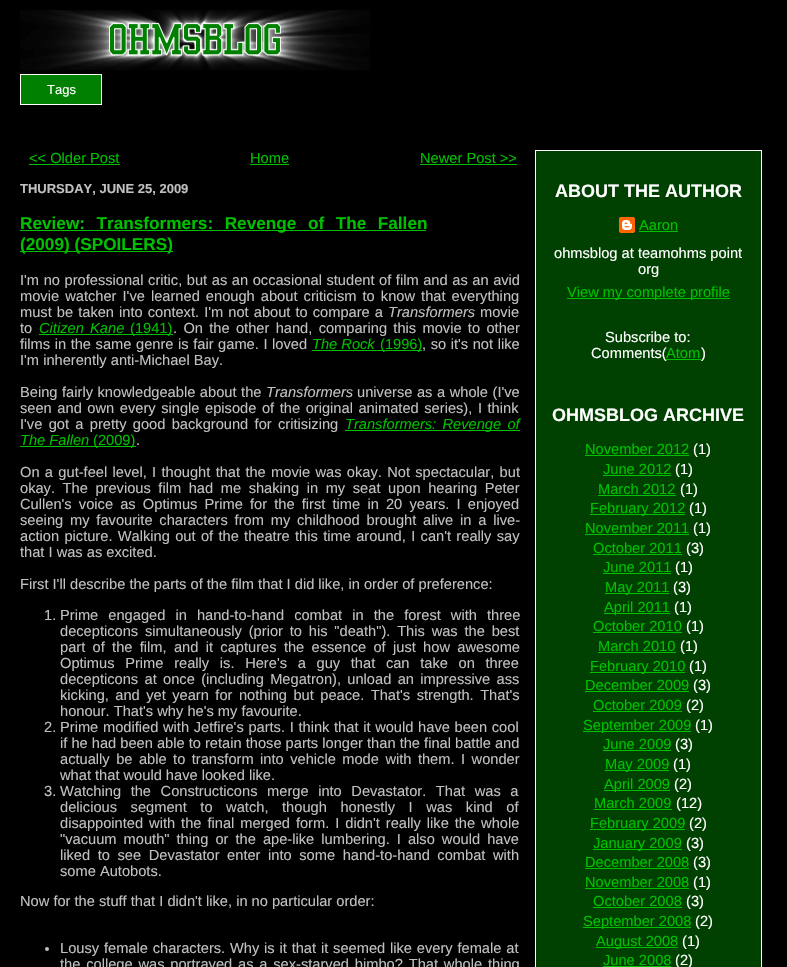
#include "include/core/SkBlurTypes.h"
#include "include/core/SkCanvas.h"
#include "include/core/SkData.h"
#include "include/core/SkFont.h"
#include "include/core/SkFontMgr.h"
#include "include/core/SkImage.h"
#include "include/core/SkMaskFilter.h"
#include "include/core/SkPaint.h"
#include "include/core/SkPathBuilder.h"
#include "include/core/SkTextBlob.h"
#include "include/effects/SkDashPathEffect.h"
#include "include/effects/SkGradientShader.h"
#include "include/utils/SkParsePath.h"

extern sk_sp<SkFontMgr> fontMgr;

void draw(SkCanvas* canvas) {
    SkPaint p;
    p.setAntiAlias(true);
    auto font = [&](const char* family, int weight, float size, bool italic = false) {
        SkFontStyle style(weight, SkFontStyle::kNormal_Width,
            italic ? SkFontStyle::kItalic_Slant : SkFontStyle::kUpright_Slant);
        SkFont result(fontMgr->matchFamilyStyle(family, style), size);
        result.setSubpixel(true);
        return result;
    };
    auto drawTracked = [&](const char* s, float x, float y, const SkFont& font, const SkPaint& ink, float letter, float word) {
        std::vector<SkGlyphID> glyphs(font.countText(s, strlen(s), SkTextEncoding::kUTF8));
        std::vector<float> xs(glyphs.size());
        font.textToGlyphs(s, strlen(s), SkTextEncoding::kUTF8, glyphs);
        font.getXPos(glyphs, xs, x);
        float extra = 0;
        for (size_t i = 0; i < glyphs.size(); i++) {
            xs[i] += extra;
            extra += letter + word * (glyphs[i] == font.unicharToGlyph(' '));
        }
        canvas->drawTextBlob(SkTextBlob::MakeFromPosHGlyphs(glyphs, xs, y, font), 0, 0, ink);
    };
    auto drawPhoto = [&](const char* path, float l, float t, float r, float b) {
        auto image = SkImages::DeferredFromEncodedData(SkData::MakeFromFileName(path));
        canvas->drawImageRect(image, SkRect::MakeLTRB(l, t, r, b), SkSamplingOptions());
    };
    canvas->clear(0xFF000000);
    drawPhoto("media/1.png", 20, 10, 370, 70);
    p.setColor(0xFF008000);
    canvas->drawRect(SkRect::MakeLTRB(20.5f, 74.5f, 101.5f, 104.5f), p);
    p.setStyle(SkPaint::kStroke_Style);
    p.setStrokeWidth(1);
    p.setColor(0xFFFFFFFF);
    canvas->drawRect(SkRect::MakeLTRB(20.5f, 74.5f, 101.5f, 104.5f), p);
    auto font1 = font("Liberation Sans", 400, 13);
    p.setStyle(SkPaint::kFill_Style);
    canvas->drawString("Tags", 47, 94, font1, p);
    auto font2 = font("Liberation Sans", 400, 14.65f);
    p.setColor(0xFF00C000);
    canvas->drawString("<< Older Post", 29, 163, font2, p);
    canvas->drawRect(SkRect::MakeLTRB(29, 164, 120, 165), p);
    canvas->drawString("Home", 250, 163, font2, p);
    canvas->drawRect(SkRect::MakeLTRB(250, 164, 289, 165), p);
    canvas->drawString("Newer Post >>", 420, 163, font2, p);
    canvas->drawRect(SkRect::MakeLTRB(420, 164, 517, 165), p);
    auto font3 = font("Liberation Sans", 700, 13);
    p.setColor(0xFFC0C0C0);
    canvas->drawString("THURSDAY, JUNE 25, 2009", 20, 193, font3, p);
    p.setColor(0xFF00C000);
    canvas->drawRect(SkRect::MakeLTRB(20, 230, 426, 231), p);
    auto font4 = font("Liberation Sans", 700, 17.2f);
    drawTracked("Review: Transformers: Revenge of The Fallen", 20, 229, font4, p, 0, 6.75f);
    canvas->drawRect(SkRect::MakeLTRB(20, 251, 173, 252), p);
    canvas->drawString("(2009) (SPOILERS)", 20, 250, font4, p);
    p.setColor(0xFFC0C0C0);
    drawTracked("I'm no professional critic, but as an occasional student of film and as an avid", 20, 285, font2, p, 0, 0.5f);
    drawTracked("movie watcher I've learned enough about criticism to know that everything", 20, 301, font2, p, 0, 2);
    drawTracked("must be taken into context. I'm not about to compare a", 20, 317, font2, p, 0, 1);
    auto font5 = font("Liberation Sans", 400, 14.65f, true);
    canvas->drawString("Transformers", 388, 317, font5, p);
    canvas->drawString("movie", 480, 317, font2, p);
    canvas->drawString("to", 20, 333, font2, p);
    p.setColor(0xFF00C000);
    drawTracked("Citizen Kane", 39, 333, font5, p, 0, 2.25f);
    canvas->drawRect(SkRect::MakeLTRB(39, 334, 173, 335), p);
    canvas->drawString("(1941)", 130, 333, font2, p);
    p.setColor(0xFFC0C0C0);
    drawTracked(". On the other hand, comparing this movie to other", 173, 333, font2, p, 0, 2.25f);
    drawTracked("films in the same genre is fair game. I loved", 20, 349, font2, p, 0, 0.5f);
    p.setColor(0xFF00C000);
    canvas->drawString("The Rock", 312, 349, font5, p);
    canvas->drawRect(SkRect::MakeLTRB(312, 350, 422, 351), p);
    canvas->drawString("(1996)", 380, 349, font2, p);
    p.setColor(0xFFC0C0C0);
    drawTracked(", so it's not like", 422, 349, font2, p, 0, 0.5f);
    canvas->drawString("I'm inherently anti-Michael Bay.", 20, 365, font2, p);
    drawTracked("Being fairly knowledgeable about the", 20, 397, font2, p, 0, 0.5f);
    canvas->drawString("Transformers", 266, 397, font5, p);
    drawTracked("universe as a whole (I've", 357, 397, font2, p, 0, 0.5f);
    drawTracked("seen and own every single episode of the original animated series), I think", 20, 413, font2, p, 0, 1.5f);
    drawTracked("I've got a pretty good background for critisizing", 20, 429, font2, p, 0, 2.25f);
    p.setColor(0xFF00C000);
    canvas->drawRect(SkRect::MakeLTRB(345, 430, 520, 431), p);
    drawTracked("Transformers: Revenge of", 345, 429, font5, p, 0, 2.25f);
    canvas->drawString("The Fallen", 20, 445, font5, p);
    canvas->drawRect(SkRect::MakeLTRB(20, 446, 136, 447), p);
    canvas->drawString("(2009)", 93, 445, font2, p);
    p.setColor(0xFFC0C0C0);
    canvas->drawString(".", 136, 445, font2, p);
    drawTracked("On a gut-feel level, I thought that the movie was okay. Not spectacular, but", 20, 477, font2, p, 0, 1.25f);
    drawTracked("okay. The previous film had me shaking in my seat upon hearing Peter", 20, 493, font2, p, 0, 3.5f);
    drawTracked("Cullen's voice as Optimus Prime for the first time in 20 years. I enjoyed", 20, 509, font2, p, 0, 3.1f);
    drawTracked("seeing my favourite characters from my childhood brought alive in a live-", 20, 525, font2, p, 0, 2.75f);
    drawTracked("action picture. Walking out of the theatre this time around, I can't really say", 20, 541, font2, p, 0, 1.25f);
    {
        const struct { const char* s; float x, y; } items[] = {
            {"that I was as excited.", 20, 557},
            {"First I'll describe the parts of the film that I did like, in order of preference:", 20, 589},
            {"1.", 44, 620},
        };
        for (auto [s, x, y] : items) {
            canvas->drawString(s, x, y, font2, p);
        }
    }
    drawTracked("Prime engaged in hand-to-hand combat in the forest with three", 60, 620, font2, p, 0, 6);
    drawTracked("decepticons simultaneously (prior to his \"death\"). This was the best", 60, 636, font2, p, 0, 2.75f);
    drawTracked("part of the film, and it captures the essence of just how awesome", 60, 652, font2, p, 0, 3.25f);
    drawTracked("Optimus Prime really is. Here's a guy that can take on three", 60, 668, font2, p, 0, 6.6f);
    drawTracked("decepticons at once (including Megatron), unload an impressive ass", 60, 684, font2, p, 0, 2.25f);
    drawTracked("kicking, and yet yearn for nothing but peace. That's strength. That's", 60, 700, font2, p, 0, 2.4f);
    canvas->drawString("honour. That's why he's my favourite.", 60, 716, font2, p);
    canvas->drawString("2.", 44, 732, font2, p);
    drawTracked("Prime modified with Jetfire's parts. I think that it would have been cool", 60, 732, font2, p, 0, 0.6f);
    canvas->drawString("if he had been able to retain those parts longer than the final battle and", 60, 748, font2, p);
    drawTracked("actually be able to transform into vehicle mode with them. I wonder", 60, 764, font2, p, 0, 2.4f);
    canvas->drawString("what that would have looked like.", 60, 780, font2, p);
    canvas->drawString("3.", 44, 796, font2, p);
    drawTracked("Watching the Constructicons merge into Devastator. That was a", 60, 796, font2, p, 0, 5.5f);
    drawTracked("delicious segment to watch, though honestly I was kind of", 60, 812, font2, p, 0, 9.5f);
    drawTracked("disappointed with the final merged form. I didn't really like the whole", 60, 828, font2, p, 0, 1.9f);
    drawTracked("\"vacuum mouth\" thing or the ape-like lumbering. I also would have", 60, 844, font2, p, 0, 3);
    drawTracked("liked to see Devastator enter into some hand-to-hand combat with", 60, 860, font2, p, 0, 3.5f);
    canvas->drawString("some Autobots.", 60, 876, font2, p);
    canvas->drawString("Now for the stuff that I didn't like, in no particular order:", 20, 906, font2, p);
    canvas->drawCircle(47, 949, 2, p);
    drawTracked("Lousy female characters. Why is it that it seemed like every female at", 60, 953, font2, p, 0, 0.75f);
    drawTracked("the college was portrayed as a sex-starved bimbo? That whole thing", 60, 969, font2, p, 0, 1.75f);
    p.setColor(0xFF004000);
    canvas->drawRect(SkRect::MakeLTRB(535.5f, 150.5f, 761.5f, 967.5f), p);
    p.setStyle(SkPaint::kStroke_Style);
    p.setColor(0xFFFFFFFF);
    canvas->drawRect(SkRect::MakeLTRB(535.5f, 150.5f, 761.5f, 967.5f), p);
    auto font6 = font("Liberation Sans", 700, 18);
    p.setStyle(SkPaint::kFill_Style);
    canvas->drawString("ABOUT THE AUTHOR", 555, 197, font6, p);
    drawPhoto("media/2.png", 619, 217, 635, 233);
    p.setColor(0xFF00C000);
    canvas->drawString("Aaron", 639, 230, font2, p);
    canvas->drawRect(SkRect::MakeLTRB(639, 231, 678, 232), p);
    p.setColor(0xFFFFFFFF);
    canvas->drawString("ohmsblog at teamohms point", 554, 258, font2, p);
    canvas->drawString("org", 638, 274, font2, p);
    p.setColor(0xFF00C000);
    canvas->drawRect(SkRect::MakeLTRB(567, 298, 730, 299), p);
    canvas->drawString("View my complete profile", 567, 297, font2, p);
    p.setColor(0xFFFFFFFF);
    canvas->drawString("Subscribe to:", 605, 342, font2, p);
    canvas->drawString("Comments(", 591, 358, font2, p);
    p.setColor(0xFF00C000);
    canvas->drawString("Atom", 666, 358, font2, p);
    canvas->drawRect(SkRect::MakeLTRB(666, 359, 701, 360), p);
    p.setColor(0xFFFFFFFF);
    canvas->drawString(")", 701, 358, font2, p);
    canvas->drawString("OHMSBLOG ARCHIVE", 552, 421, font6, p);
    p.setColor(0xFF00C000);
    canvas->drawString("November 2012", 585, 454, font2, p);
    canvas->drawRect(SkRect::MakeLTRB(585, 455, 689, 456), p);
    p.setColor(0xFFFFFFFF);
    canvas->drawString("(1)", 693, 454, font2, p);
    p.setColor(0xFF00C000);
    canvas->drawString("June 2012", 603, 474, font2, p);
    canvas->drawRect(SkRect::MakeLTRB(603, 475, 671, 476), p);
    p.setColor(0xFFFFFFFF);
    canvas->drawString("(1)", 675, 474, font2, p);
    p.setColor(0xFF00C000);
    canvas->drawString("March 2012", 598, 494, font2, p);
    canvas->drawRect(SkRect::MakeLTRB(598, 495, 676, 496), p);
    p.setColor(0xFFFFFFFF);
    canvas->drawString("(1)", 680, 494, font2, p);
    p.setColor(0xFF00C000);
    canvas->drawRect(SkRect::MakeLTRB(590, 514, 685, 515), p);
    canvas->drawString("February 2012", 590, 513, font2, p);
    p.setColor(0xFFFFFFFF);
    canvas->drawString("(1)", 689, 513, font2, p);
    p.setColor(0xFF00C000);
    canvas->drawString("November 2011", 585, 533, font2, p);
    canvas->drawRect(SkRect::MakeLTRB(585, 534, 689, 535), p);
    p.setColor(0xFFFFFFFF);
    canvas->drawString("(1)", 693, 533, font2, p);
    p.setColor(0xFF00C000);
    canvas->drawString("October 2011", 593, 553, font2, p);
    canvas->drawRect(SkRect::MakeLTRB(593, 554, 682, 555), p);
    p.setColor(0xFFFFFFFF);
    canvas->drawString("(3)", 686, 553, font2, p);
    p.setColor(0xFF00C000);
    canvas->drawString("June 2011", 603, 572, font2, p);
    canvas->drawRect(SkRect::MakeLTRB(603, 573, 671, 574), p);
    p.setColor(0xFFFFFFFF);
    canvas->drawString("(1)", 675, 572, font2, p);
    p.setColor(0xFF00C000);
    canvas->drawRect(SkRect::MakeLTRB(605, 593, 669, 594), p);
    canvas->drawString("May 2011", 605, 592, font2, p);
    p.setColor(0xFFFFFFFF);
    canvas->drawString("(3)", 673, 592, font2, p);
    p.setColor(0xFF00C000);
    canvas->drawRect(SkRect::MakeLTRB(604, 613, 670, 614), p);
    canvas->drawString("April 2011", 604, 612, font2, p);
    p.setColor(0xFFFFFFFF);
    canvas->drawString("(1)", 674, 612, font2, p);
    p.setColor(0xFF00C000);
    canvas->drawString("October 2010", 593, 631, font2, p);
    canvas->drawRect(SkRect::MakeLTRB(593, 632, 682, 633), p);
    p.setColor(0xFFFFFFFF);
    canvas->drawString("(1)", 686, 631, font2, p);
    p.setColor(0xFF00C000);
    canvas->drawString("March 2010", 598, 651, font2, p);
    canvas->drawRect(SkRect::MakeLTRB(598, 652, 676, 653), p);
    p.setColor(0xFFFFFFFF);
    canvas->drawString("(1)", 680, 651, font2, p);
    p.setColor(0xFF00C000);
    canvas->drawRect(SkRect::MakeLTRB(590, 672, 685, 673), p);
    canvas->drawString("February 2010", 590, 671, font2, p);
    p.setColor(0xFFFFFFFF);
    canvas->drawString("(1)", 689, 671, font2, p);
    p.setColor(0xFF00C000);
    canvas->drawString("December 2009", 585, 690, font2, p);
    canvas->drawRect(SkRect::MakeLTRB(585, 691, 689, 692), p);
    p.setColor(0xFFFFFFFF);
    canvas->drawString("(3)", 693, 690, font2, p);
    p.setColor(0xFF00C000);
    canvas->drawString("October 2009", 593, 710, font2, p);
    canvas->drawRect(SkRect::MakeLTRB(593, 711, 682, 712), p);
    p.setColor(0xFFFFFFFF);
    canvas->drawString("(2)", 686, 710, font2, p);
    p.setColor(0xFF00C000);
    canvas->drawRect(SkRect::MakeLTRB(583, 731, 691, 732), p);
    canvas->drawString("September 2009", 583, 730, font2, p);
    p.setColor(0xFFFFFFFF);
    canvas->drawString("(1)", 695, 730, font2, p);
    p.setColor(0xFF00C000);
    canvas->drawString("June 2009", 603, 749, font2, p);
    canvas->drawRect(SkRect::MakeLTRB(603, 750, 671, 751), p);
    p.setColor(0xFFFFFFFF);
    canvas->drawString("(3)", 675, 749, font2, p);
    p.setColor(0xFF00C000);
    canvas->drawRect(SkRect::MakeLTRB(605, 770, 669, 771), p);
    canvas->drawString("May 2009", 605, 769, font2, p);
    p.setColor(0xFFFFFFFF);
    canvas->drawString("(1)", 673, 769, font2, p);
    p.setColor(0xFF00C000);
    canvas->drawRect(SkRect::MakeLTRB(604, 790, 670, 791), p);
    canvas->drawString("April 2009", 604, 789, font2, p);
    p.setColor(0xFFFFFFFF);
    canvas->drawString("(2)", 674, 789, font2, p);
    p.setColor(0xFF00C000);
    canvas->drawString("March 2009", 594, 808, font2, p);
    canvas->drawRect(SkRect::MakeLTRB(594, 809, 672, 810), p);
    p.setColor(0xFFFFFFFF);
    canvas->drawString("(12)", 676, 808, font2, p);
    p.setColor(0xFF00C000);
    canvas->drawRect(SkRect::MakeLTRB(590, 829, 685, 830), p);
    canvas->drawString("February 2009", 590, 828, font2, p);
    p.setColor(0xFFFFFFFF);
    canvas->drawString("(2)", 689, 828, font2, p);
    p.setColor(0xFF00C000);
    canvas->drawRect(SkRect::MakeLTRB(593, 849, 682, 850), p);
    canvas->drawString("January 2009", 593, 848, font2, p);
    p.setColor(0xFFFFFFFF);
    canvas->drawString("(3)", 686, 848, font2, p);
    p.setColor(0xFF00C000);
    canvas->drawString("December 2008", 585, 867, font2, p);
    canvas->drawRect(SkRect::MakeLTRB(585, 868, 689, 869), p);
    p.setColor(0xFFFFFFFF);
    canvas->drawString("(3)", 693, 867, font2, p);
    p.setColor(0xFF00C000);
    canvas->drawString("November 2008", 585, 887, font2, p);
    canvas->drawRect(SkRect::MakeLTRB(585, 888, 689, 889), p);
    p.setColor(0xFFFFFFFF);
    canvas->drawString("(1)", 693, 887, font2, p);
    p.setColor(0xFF00C000);
    canvas->drawString("October 2008", 593, 906, font2, p);
    canvas->drawRect(SkRect::MakeLTRB(593, 907, 682, 908), p);
    p.setColor(0xFFFFFFFF);
    canvas->drawString("(3)", 686, 906, font2, p);
    p.setColor(0xFF00C000);
    canvas->drawRect(SkRect::MakeLTRB(583, 927, 691, 928), p);
    canvas->drawString("September 2008", 583, 926, font2, p);
    p.setColor(0xFFFFFFFF);
    canvas->drawString("(2)", 695, 926, font2, p);
    p.setColor(0xFF00C000);
    canvas->drawRect(SkRect::MakeLTRB(596, 947, 678, 948), p);
    canvas->drawString("August 2008", 596, 946, font2, p);
    p.setColor(0xFFFFFFFF);
    canvas->drawString("(1)", 682, 946, font2, p);
    p.setColor(0xFF00C000);
    canvas->drawString("June 2008", 603, 965, font2, p);
    canvas->drawRect(SkRect::MakeLTRB(603, 966, 671, 967), p);
    p.setColor(0xFFFFFFFF);
    canvas->drawString("(2)", 675, 965, font2, p);
}
